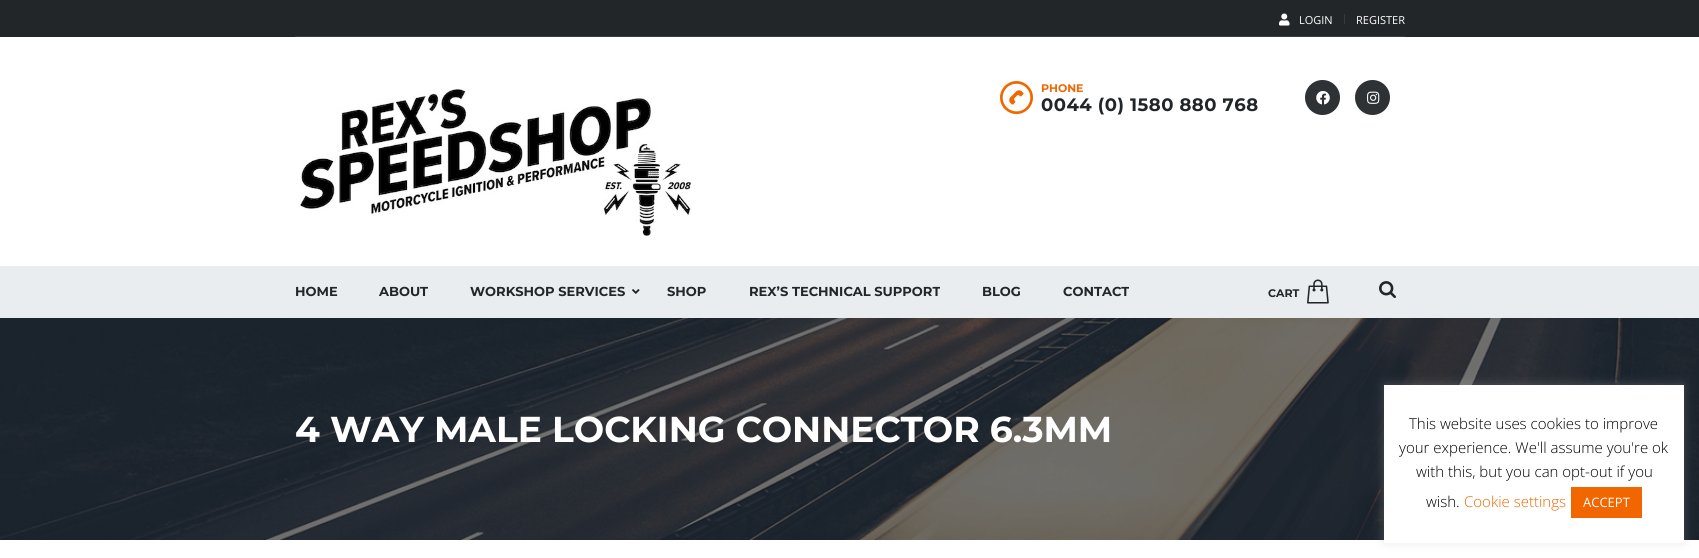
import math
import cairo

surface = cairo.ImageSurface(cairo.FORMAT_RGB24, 1699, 558)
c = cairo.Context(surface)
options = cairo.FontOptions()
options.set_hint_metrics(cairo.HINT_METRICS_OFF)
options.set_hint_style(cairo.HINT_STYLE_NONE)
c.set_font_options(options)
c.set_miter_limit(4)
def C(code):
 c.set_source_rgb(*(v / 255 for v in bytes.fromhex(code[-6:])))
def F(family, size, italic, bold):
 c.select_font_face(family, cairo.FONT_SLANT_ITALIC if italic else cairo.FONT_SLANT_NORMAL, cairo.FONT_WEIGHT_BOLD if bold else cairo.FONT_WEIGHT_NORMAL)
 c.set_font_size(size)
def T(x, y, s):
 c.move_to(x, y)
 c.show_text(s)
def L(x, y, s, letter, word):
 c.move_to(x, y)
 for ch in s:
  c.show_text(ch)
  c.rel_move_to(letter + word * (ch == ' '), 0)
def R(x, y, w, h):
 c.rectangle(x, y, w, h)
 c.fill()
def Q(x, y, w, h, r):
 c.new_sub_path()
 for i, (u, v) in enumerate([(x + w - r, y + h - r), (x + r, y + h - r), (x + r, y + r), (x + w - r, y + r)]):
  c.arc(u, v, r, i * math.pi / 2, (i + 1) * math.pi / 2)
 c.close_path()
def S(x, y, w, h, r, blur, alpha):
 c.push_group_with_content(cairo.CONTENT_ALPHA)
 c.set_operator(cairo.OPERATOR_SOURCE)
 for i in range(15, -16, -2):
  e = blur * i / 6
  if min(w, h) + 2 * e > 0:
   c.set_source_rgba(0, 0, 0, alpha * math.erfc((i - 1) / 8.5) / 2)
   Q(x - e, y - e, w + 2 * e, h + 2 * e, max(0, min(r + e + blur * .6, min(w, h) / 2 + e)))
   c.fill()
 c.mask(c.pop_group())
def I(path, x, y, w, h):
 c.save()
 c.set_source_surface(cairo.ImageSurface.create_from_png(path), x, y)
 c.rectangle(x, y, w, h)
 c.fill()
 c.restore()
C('ffffff')
c.paint()
C('232628')
R(0,0,1699,37)
C('393c3e')
R(295,36,1110,1)
I('1.png',1279,13,11,13)
F('Open Sans',11,0,0)
C('ffffff')
T(1299,24,'LOGIN')
C('373b3e')
R(1344,14,1,10)
C('ffffff')
T(1356,24,'REGISTER')
I('2.png',300,89,392,148)
I('3.png',1000,81,33,34)
F('Montserrat',11,0,1)
C('f26600')
T(1041,92,'PHONE')
F('Montserrat',18,0,1)
C('232628')
L(1041,111,'0044 (0) 1580 880 768',.5,0)
C('2f3234')
c.new_path()
c.arc(1322.5,97.5,17.5,0,2 * math.pi)
c.fill()
I('4.png',1316,91,14,14)
c.arc(1372.5,97.5,17.5,0,2 * math.pi)
c.fill()
I('5.png',1367,91,13,13)
C('eaedf0')
R(0,266,1699,52)
F('Montserrat',13,0,1)
C('232628')
T(295,296,'HOME')
T(379,296,'ABOUT')
T(470,296,'WORKSHOP SERVICES')
I('6.png',632,289,8,5)
T(667,296,'SHOP')
T(749,296,'REX’S TECHNICAL SUPPORT')
T(982,296,'BLOG')
T(1063,296,'CONTACT')
F('Montserrat',11,0,1)
T(1268,297,'CART')
I('7.png',1307,279,22,25)
I('8.png',1379,281,17,17)
I('9.png',0,318,1699,222)
F('Montserrat',36,0,1)
C('ffffff')
T(295,442,'4 WAY MALE LOCKING CONNECTOR 6.3MM')
C('acabab')
S(1384,384,300,158,0,5,.3)
C('ffffff')
R(1384,385,300,158)
F('Open Sans Light',15,0,0)
C('000000')
T(1409,429,'This website uses cookies to improve')
T(1399,453,'your experience. We\'ll assume you\'re ok')
T(1416,477,'with this, but you can opt-out if you')
T(1426,507,'wish.')
C('f26600')
T(1464,507,'Cookie settings')
R(1571,487,71,31)
F('Open Sans',13,0,0)
C('ffffff')
T(1583,507,'ACCEPT')
surface.write_to_png('o.png')
